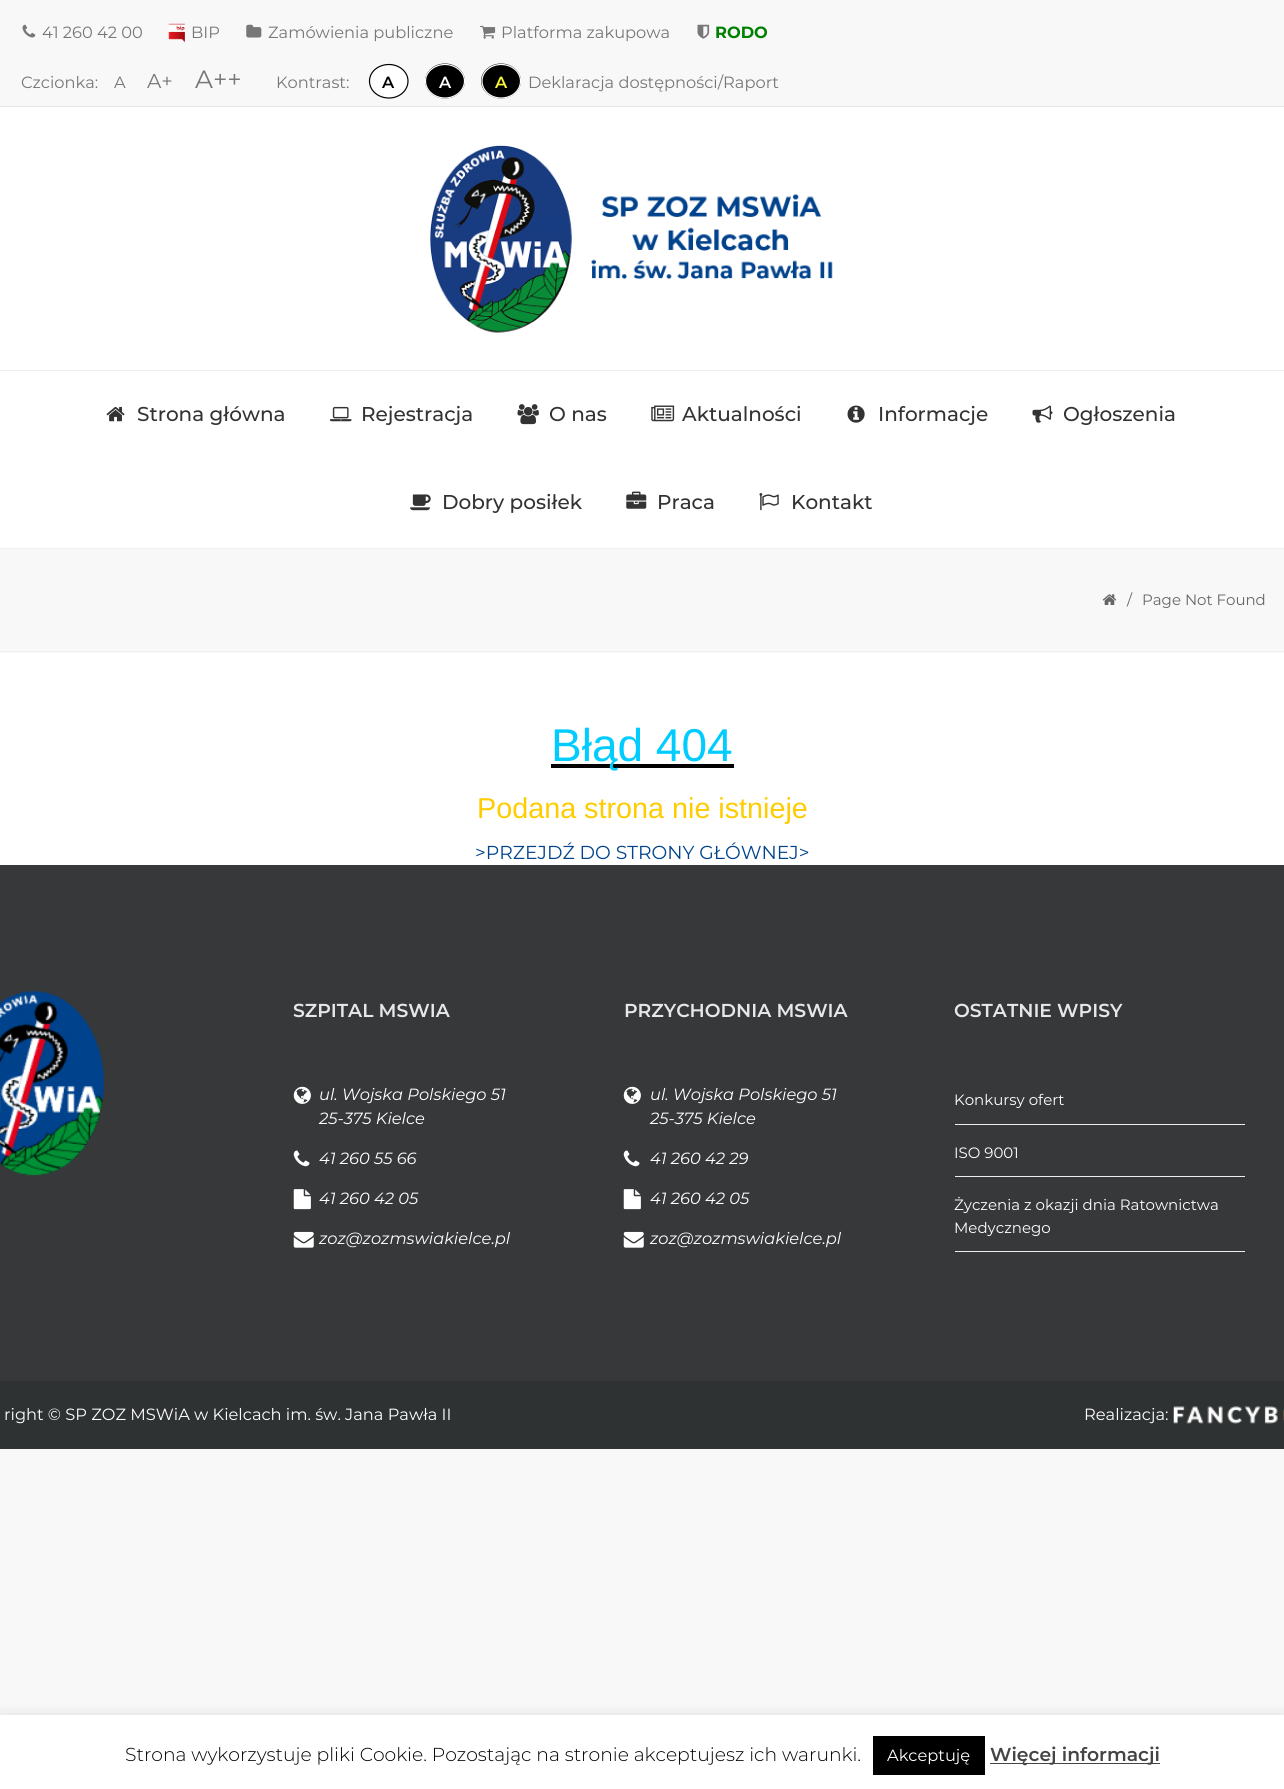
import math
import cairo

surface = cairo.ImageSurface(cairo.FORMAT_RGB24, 1284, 1789)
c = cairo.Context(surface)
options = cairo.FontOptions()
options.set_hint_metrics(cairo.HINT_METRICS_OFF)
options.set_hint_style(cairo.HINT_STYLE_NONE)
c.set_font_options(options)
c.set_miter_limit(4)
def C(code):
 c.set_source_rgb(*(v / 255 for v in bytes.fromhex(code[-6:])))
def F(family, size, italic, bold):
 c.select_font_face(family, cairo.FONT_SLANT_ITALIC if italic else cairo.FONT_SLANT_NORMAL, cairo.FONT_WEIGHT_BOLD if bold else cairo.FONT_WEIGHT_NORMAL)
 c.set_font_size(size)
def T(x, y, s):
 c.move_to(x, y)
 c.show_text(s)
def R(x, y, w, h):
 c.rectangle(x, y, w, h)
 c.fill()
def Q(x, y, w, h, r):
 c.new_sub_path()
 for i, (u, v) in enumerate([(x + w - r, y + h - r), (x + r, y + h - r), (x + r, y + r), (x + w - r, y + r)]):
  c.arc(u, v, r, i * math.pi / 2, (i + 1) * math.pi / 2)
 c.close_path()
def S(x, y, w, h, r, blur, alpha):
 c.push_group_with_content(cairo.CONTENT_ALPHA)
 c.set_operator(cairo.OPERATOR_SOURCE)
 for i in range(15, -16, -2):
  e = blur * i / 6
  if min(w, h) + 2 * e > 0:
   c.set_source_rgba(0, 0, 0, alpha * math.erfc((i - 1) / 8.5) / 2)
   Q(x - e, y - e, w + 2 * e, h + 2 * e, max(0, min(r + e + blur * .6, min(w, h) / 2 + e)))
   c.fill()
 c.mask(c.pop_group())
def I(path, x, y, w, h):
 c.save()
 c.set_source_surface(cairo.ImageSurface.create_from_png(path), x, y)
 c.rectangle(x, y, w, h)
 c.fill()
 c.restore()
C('f8f8f8')
c.paint()
C('ffffff')
R(0,107,1284,758)
C('e7e7e7')
R(0,106,1284,1)
I('1.png',22,24,14,14)
F('Montserrat',16.25,0,0)
C('777777')
T(42,38,'41 260 42 00')
I('2.png',168,23,17,20)
T(191,38,'BIP')
I('3.png',246,24,16,14)
T(268,38,'Zamówienia publiczne')
I('4.png',480,25,16,14)
T(501,38,'Platforma zakupowa')
I('5.png',697,24,13,15)
F('Montserrat',16.25,0,1)
C('008000')
T(715,38,'RODO')
F('Montserrat',16.25,0,0)
C('777777')
T(21,88,'Czcionka:')
T(114,88,'A')
F('Montserrat',20,0,0)
T(147,88,'A+')
F('Montserrat',25,0,0)
T(195,88,'A++')
F('Montserrat',16.25,0,0)
T(276,88,'Kontrast:')
C('ffffff')
c.new_path()
c.move_to(389,63.5)
c.curve_to(400,63.5,409,71.5,409,81)
c.curve_to(409,90.5,400,98.5,389,98.5)
c.curve_to(378,98.5,369,90.5,369,81)
c.curve_to(369,71.5,378,63.5,389,63.5)
c.close_path()
c.fill()
c.new_path()
c.move_to(389,64.5)
c.curve_to(399.5,64.5,408,72,408,81)
c.curve_to(408,90.5,399.5,98,389,98)
c.curve_to(378,98,369.5,90.5,369.5,81)
c.curve_to(369.5,72,378,64.5,389,64.5)
c.close_path()
C('000000')
c.set_line_width(1.2)
c.stroke()
F('Montserrat SemiBold',16.25,0,0)
T(382,88,'A')
c.new_path()
c.move_to(445,63.5)
c.curve_to(456,63.5,465,71.5,465,81)
c.curve_to(465,90.5,456,98.5,445,98.5)
c.curve_to(434,98.5,425,90.5,425,81)
c.curve_to(425,71.5,434,63.5,445,63.5)
c.close_path()
c.fill()
c.new_path()
c.move_to(445,64.5)
c.curve_to(455.5,64.5,464.5,72,464.5,81)
c.curve_to(464.5,90.5,455.5,98,445,98)
c.curve_to(434.5,98,425.5,90.5,425.5,81)
c.curve_to(425.5,72,434.5,64.5,445,64.5)
c.close_path()
C('ffffff')
c.stroke()
T(439,88,'A')
C('000000')
c.new_path()
c.move_to(501,63.5)
c.curve_to(512,63.5,521,71.5,521,81)
c.curve_to(521,90.5,512,98.5,501,98.5)
c.curve_to(490,98.5,481,90.5,481,81)
c.curve_to(481,71.5,490,63.5,501,63.5)
c.close_path()
c.fill()
c.new_path()
c.move_to(501,64.5)
c.curve_to(512,64.5,520.5,72,520.5,81)
c.curve_to(520.5,90.5,512,98,501,98)
c.curve_to(490.5,98,482,90.5,482,81)
c.curve_to(482,72,490.5,64.5,501,64.5)
c.close_path()
C('ffffff')
c.stroke()
C('f5f53c')
T(495,88,'A')
F('Montserrat',16.25,0,0)
C('777777')
T(528,88,'Deklaracja dostępności/Raport')
I('6.png',430,145,403,188)
C('f0f0f0')
R(0,370,1284,1)
R(0,548,1284,1)
I('7.png',106,406,19,16)
F('Montserrat Medium',20,0,0)
C('333333')
T(137,421,'Strona główna')
I('8.png',330,406,22,16)
T(361,421,'Rejestracja')
I('9.png',517,404,22,21)
T(549,421,'O nas')
I('10.png',651,405,24,17)
T(682,421,'Aktualności')
I('11.png',847,405,18,18)
T(878,421,'Informacje')
I('12.png',1032,405,21,18)
T(1063,421,'Ogłoszenia')
I('13.png',410,494,21,17)
T(442,509,'Dobry posiłek')
I('14.png',626,491,21,18)
T(657,509,'Praca')
I('15.png',759,493,20,18)
T(791,509,'Kontakt')
C('f8f8f8')
R(0,549,1284,104)
C('f0f0f0')
R(0,651,1284,1)
I('16.png',1102,594,15,11)
F('Montserrat',15,0,0)
C('676767')
T(1127,605,'/')
T(1142,605,'Page Not Found')
C('000000')
R(551,764,183,4)
F('Liberation Sans',46,0,0)
C('00ccff')
T(551,761,'Błąd 404')
F('Liberation Sans',28.75,0,0)
C('ffcc00')
T(477,818,'Podana strona nie istnieje')
F('Montserrat',18.75,0,0)
C('00428c')
T(475,859,'>PRZEJDŹ DO STRONY GŁÓWNEJ>')
C('363839')
R(0,865,1284,516)
I('17.png',0,991,104,185)
F('Montserrat SemiBold',18.75,0,0)
C('e6e7e8')
T(293,1017,'SZPITAL MSWIA')
I('18.png',293,1086,18,18)
F('Montserrat',16.25,1,0)
C('ffffff')
T(319,1100,'ul. Wojska Polskiego 51')
T(319,1124,'25-375 Kielce')
I('19.png',293,1150,17,17)
T(319,1164,'41 260 55 66')
I('20.png',293,1189,18,21)
T(319,1204,'41 260 42 05')
I('21.png',293,1231,21,17)
T(319,1244,'zoz@zozmswiakielce.pl')
F('Montserrat SemiBold',18.75,0,0)
C('e6e7e8')
T(624,1017,'PRZYCHODNIA MSWIA')
I('18.png',623,1086,18,18)
F('Montserrat',16.25,1,0)
C('ffffff')
T(650,1100,'ul. Wojska Polskiego 51')
T(650,1124,'25-375 Kielce')
I('19.png',623,1150,17,17)
T(650,1164,'41 260 42 29')
I('20.png',623,1189,18,21)
T(650,1204,'41 260 42 05')
I('21.png',623,1231,21,17)
T(650,1244,'zoz@zozmswiakielce.pl')
F('Montserrat SemiBold',18.75,0,0)
C('e6e7e8')
T(954,1017,'OSTATNIE WPISY')
C('eeeeee')
R(955,1124,290,1)
F('Montserrat',15,0,0)
C('ffffff')
T(954,1105,'Konkursy ofert')
C('eeeeee')
R(955,1176,290,1)
C('ffffff')
T(954,1158,'ISO 9001')
C('eeeeee')
R(955,1251,290,1)
C('ffffff')
T(954,1210,'Życzenia z okazji dnia Ratownictwa')
T(954,1233,'Medycznego')
C('2f3232')
R(0,1381,1284,68)
F('Montserrat',16.25,0,0)
C('ffffff')
T(4,1420,'right © SP ZOZ MSWiA w Kielcach im. św. Jana Pawła II')
T(1084,1420,'Realizacja:')
I('22.png',1173,1406,111,18)
C('acabab')
S(0,1714,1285,75,0,6,.3)
C('ffffff')
R(0,1715,1284,74)
F('Montserrat Light',18.75,0,0)
C('000000')
T(125,1761,'Strona wykorzystuje pliki Cookie. Pozostając na stronie akceptujesz ich warunki.')
R(873,1736,112,39)
F('Montserrat',16.25,0,0)
C('ffffff')
T(887,1761,'Akceptuję')
C('444444')
R(990,1763,170,1)
F('Montserrat SemiBold',18.75,0,0)
T(990,1761,'Więcej informacji')
surface.write_to_png('o.png')
